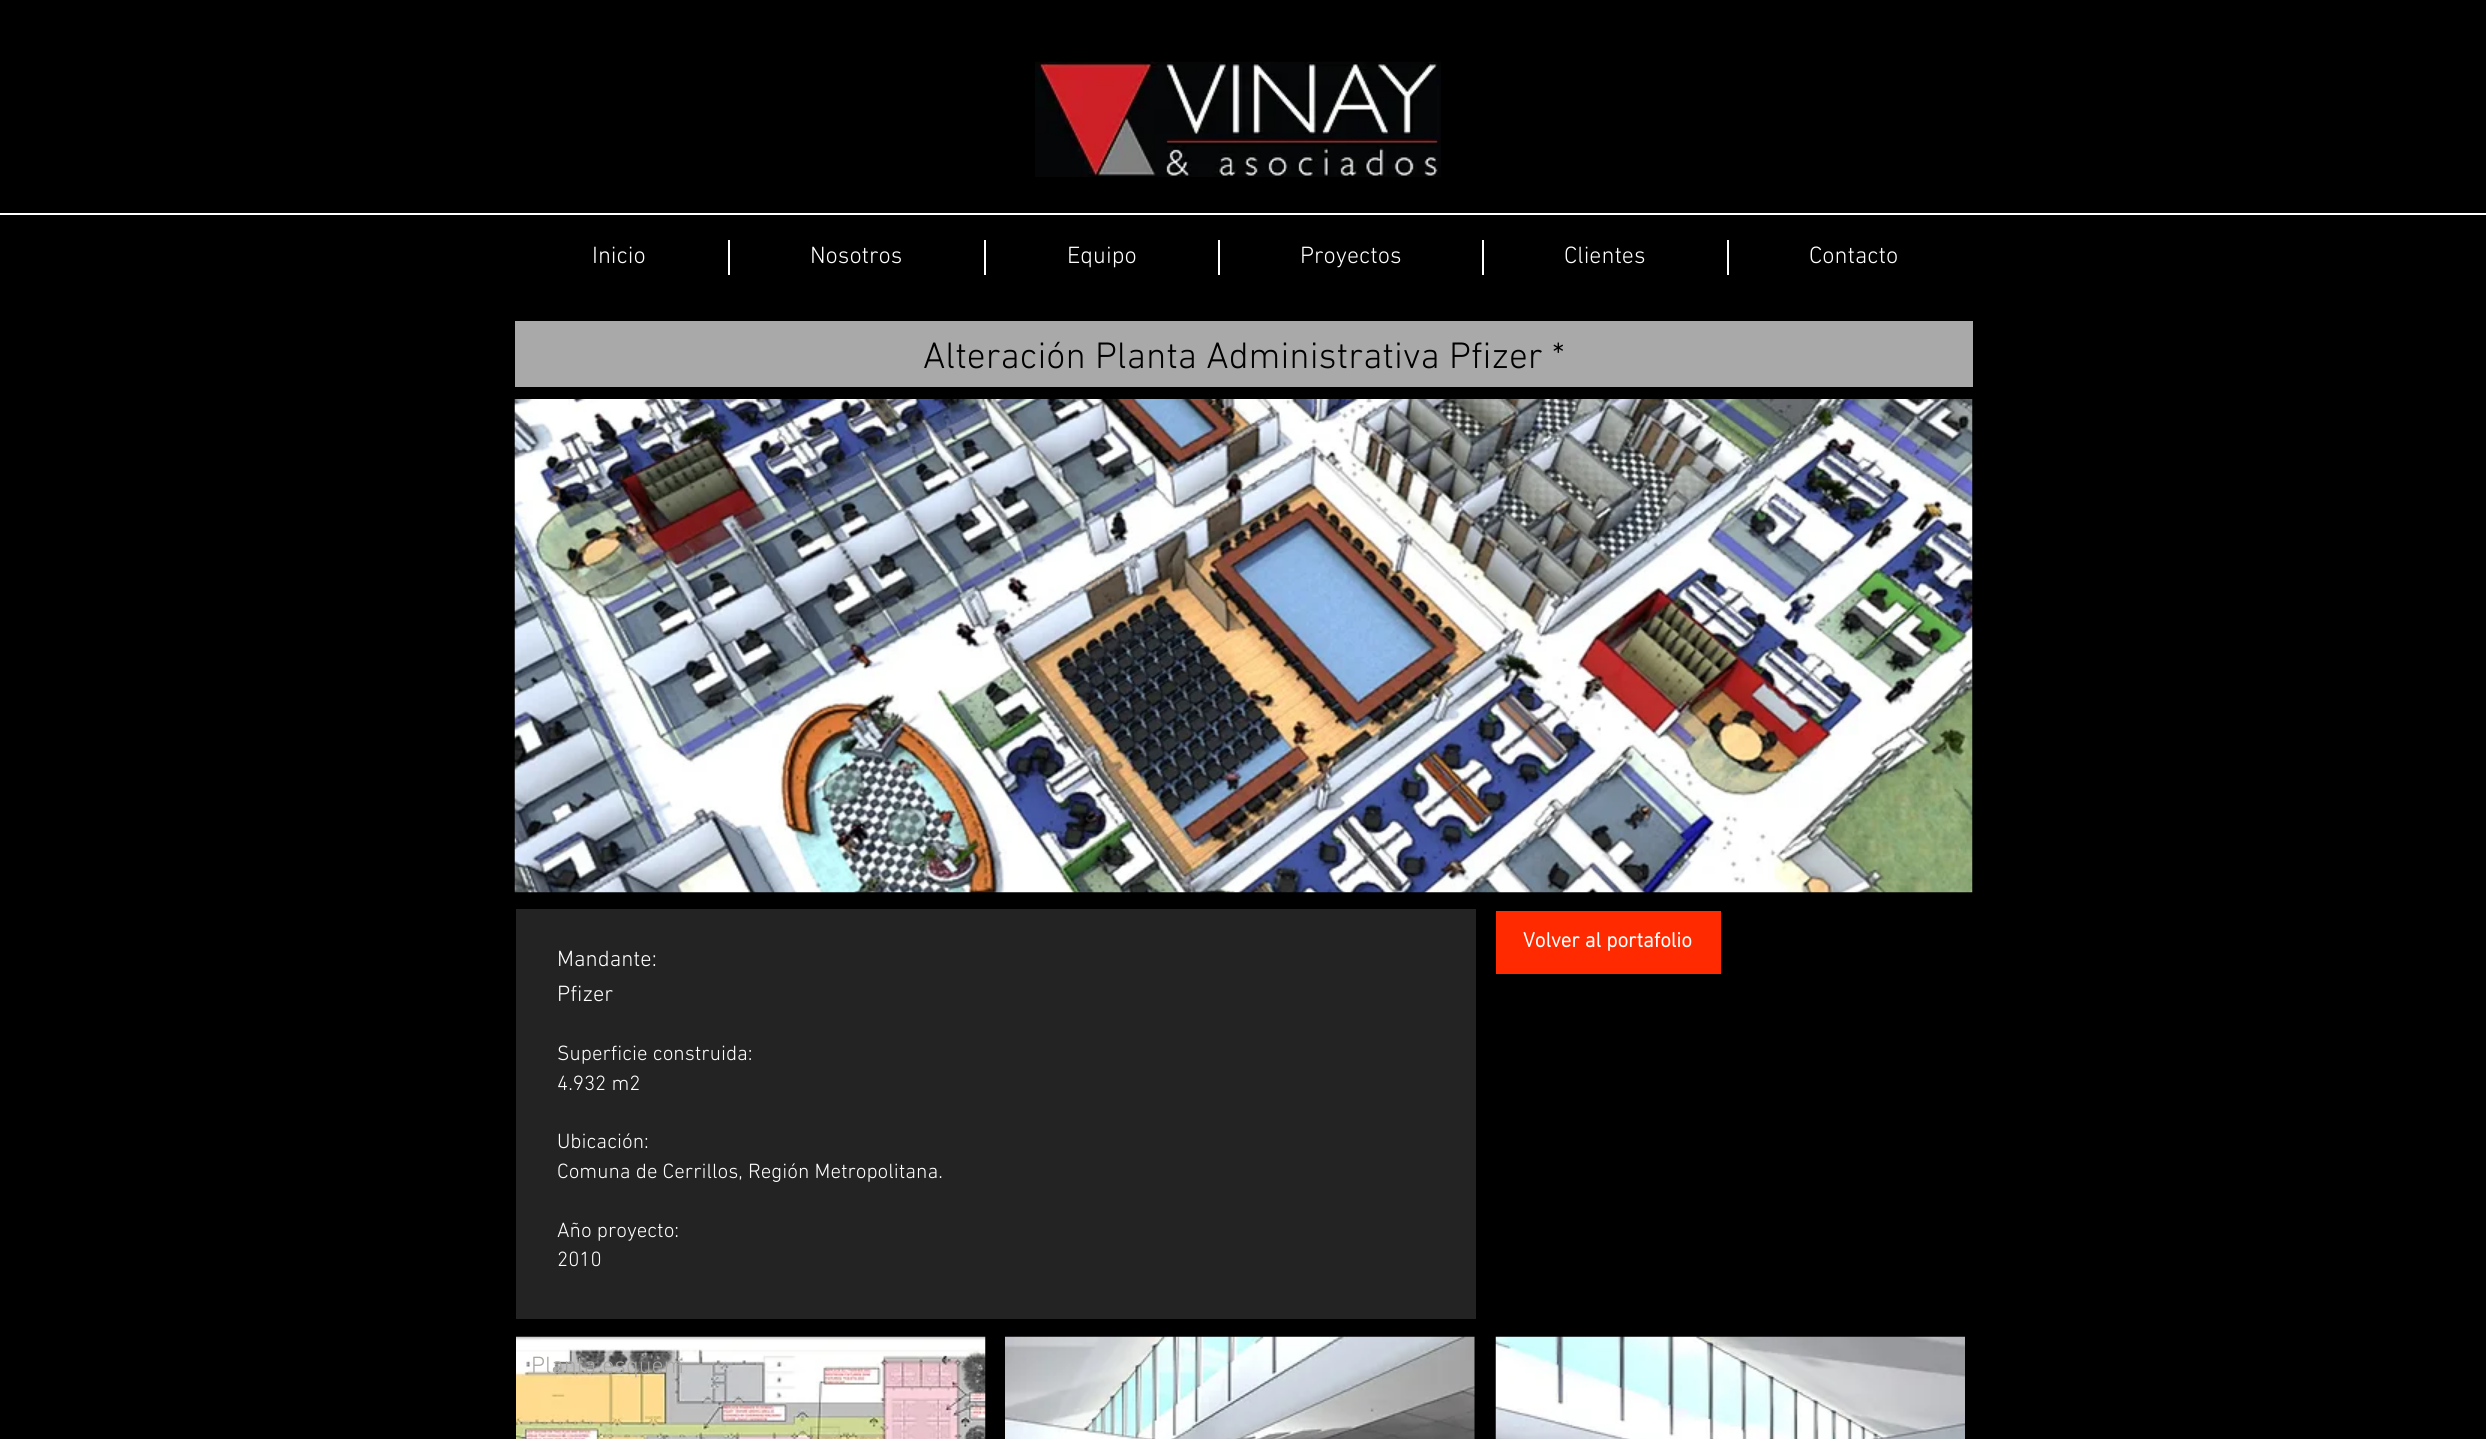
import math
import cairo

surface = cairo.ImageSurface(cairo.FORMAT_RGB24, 2486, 1439)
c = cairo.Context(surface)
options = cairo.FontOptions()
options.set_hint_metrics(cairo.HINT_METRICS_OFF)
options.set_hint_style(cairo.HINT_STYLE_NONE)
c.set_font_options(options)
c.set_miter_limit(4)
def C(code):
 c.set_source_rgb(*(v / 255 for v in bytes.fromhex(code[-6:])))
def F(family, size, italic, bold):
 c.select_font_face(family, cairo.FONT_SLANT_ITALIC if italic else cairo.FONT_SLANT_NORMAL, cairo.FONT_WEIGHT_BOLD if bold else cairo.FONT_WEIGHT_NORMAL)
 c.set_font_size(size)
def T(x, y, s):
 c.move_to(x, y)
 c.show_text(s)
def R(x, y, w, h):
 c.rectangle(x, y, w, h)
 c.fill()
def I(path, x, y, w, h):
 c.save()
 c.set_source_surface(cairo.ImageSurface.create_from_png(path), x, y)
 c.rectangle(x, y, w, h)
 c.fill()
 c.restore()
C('000000')
c.paint()
I('1.png',1035,61,406,116)
C('ffffff')
R(0,213,2486,2)
F('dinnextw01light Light',24,0,0)
T(592,263,'Inicio')
R(728,240,2,35)
T(810,263,'Nosotros')
R(984,240,2,35)
T(1067,263,'Equipo')
R(1218,240,2,35)
T(1300,263,'Proyectos')
R(1482,240,2,35)
T(1564,263,'Clientes')
R(1727,240,2,35)
T(1809,263,'Contacto')
C('a9a9a9')
R(515,321,1458,66)
F('dinnextw01light Light',37.5,0,0)
C('000000')
T(923,368,'Alteración Planta Administrativa Pfizer *')
I('2.png',514,399,1459,494)
C('ff2a00')
R(1496,911,225,63)
F('dinnextw01light',21,0,1)
C('ffffff')
T(1523,947,'Volver al portafolio')
C('232323')
R(516,909,960,410)
F('dinnextw01light Light',22.5,0,0)
C('ffffff')
T(557,966,'Mandante:')
T(557,1001,'Pfizer')
F('dinnextw01light Light',21,0,0)
T(557,1060,'Superficie construida:')
T(557,1090,'4.932 m2')
T(557,1148,'Ubicación:')
T(557,1178,'Comuna de Cerrillos, Región Metropolitana.')
T(557,1237,'Año proyecto:')
T(557,1266,'2010')
I('3.png',516,1336,470,103)
F('dinnextw01light Light',24,0,0)
C('a7a6a2')
T(531,1373,'Planta esquem')
I('4.png',1005,1336,470,103)
I('5.png',1495,1336,470,103)
surface.write_to_png('o.png')
